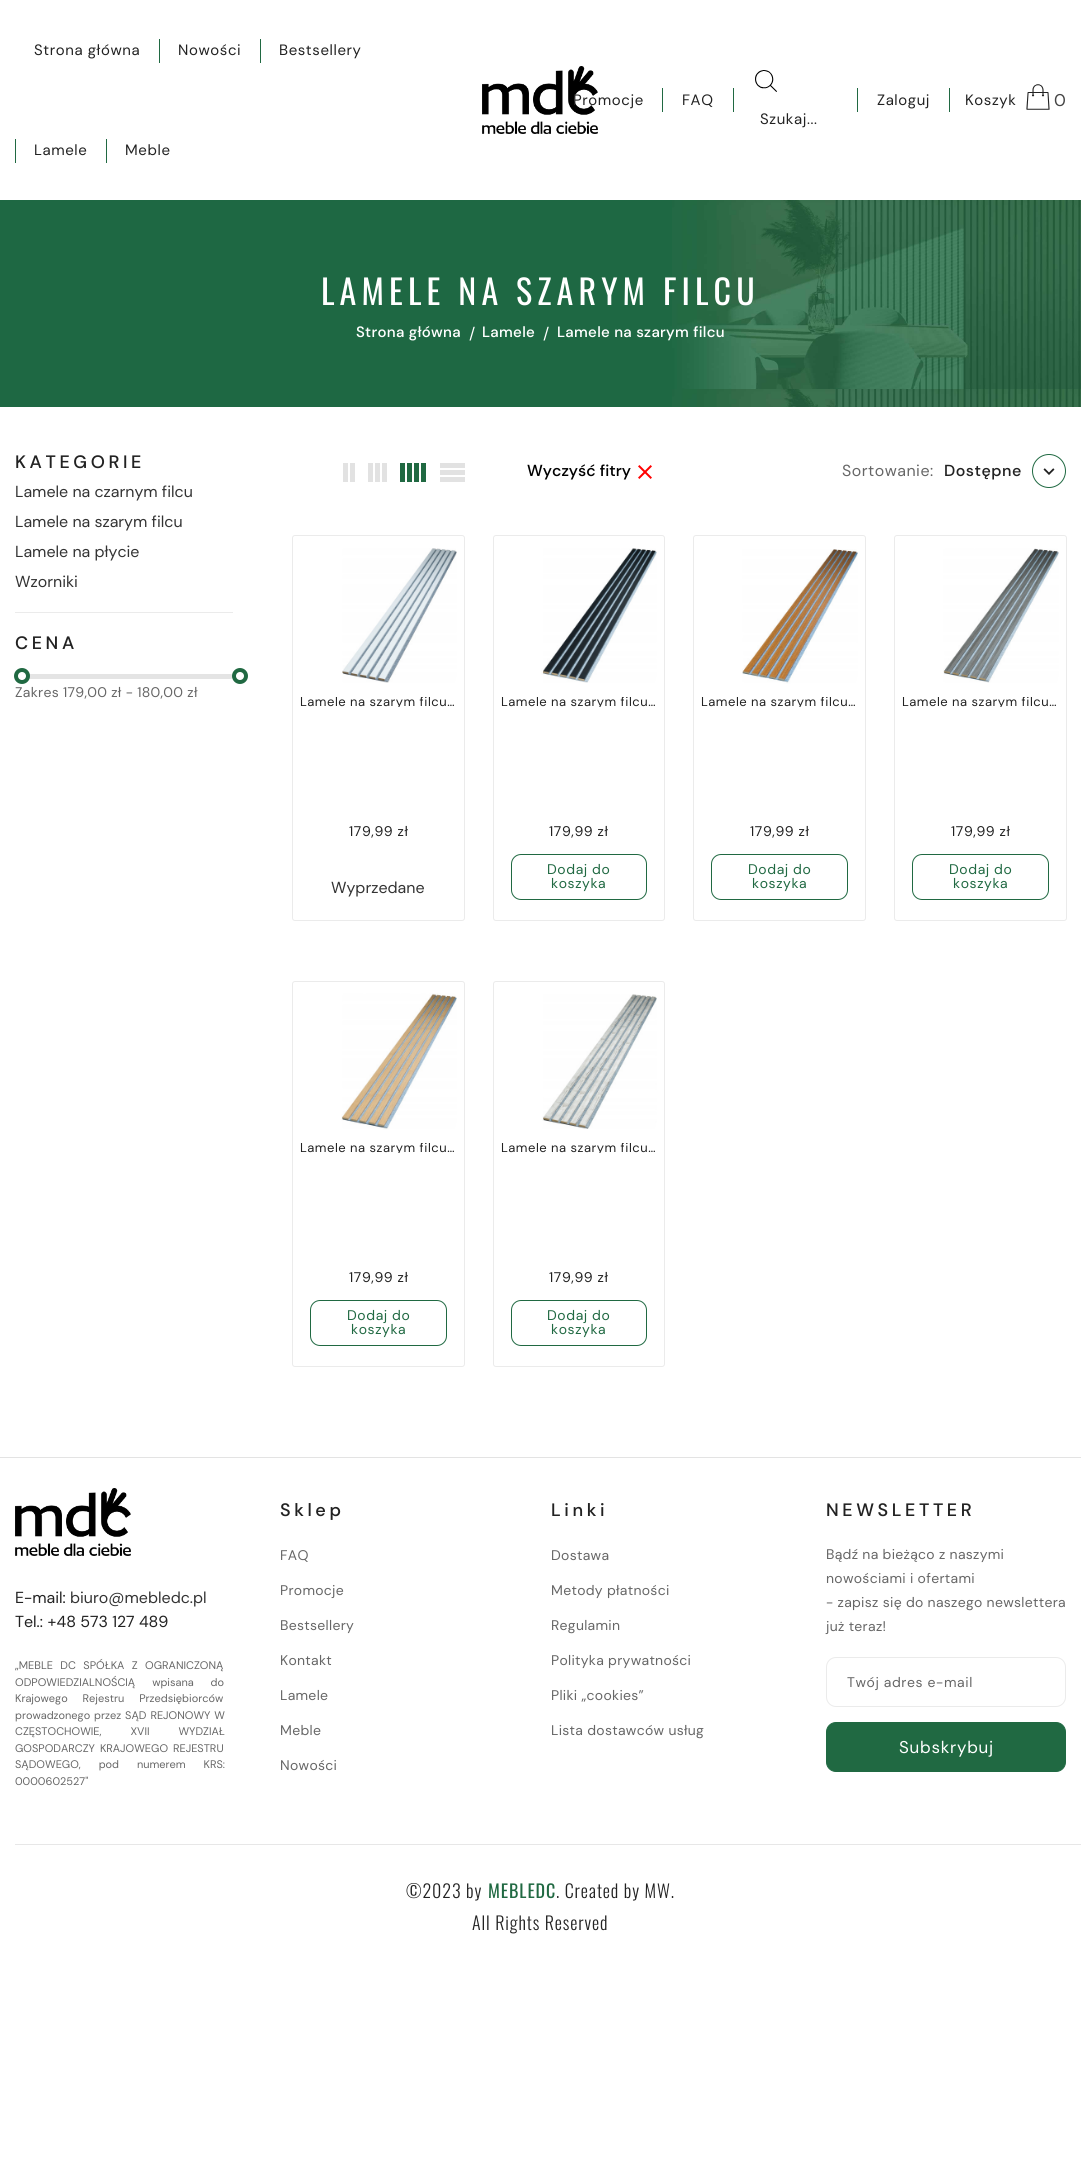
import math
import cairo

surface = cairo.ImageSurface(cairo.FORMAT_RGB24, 1081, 2163)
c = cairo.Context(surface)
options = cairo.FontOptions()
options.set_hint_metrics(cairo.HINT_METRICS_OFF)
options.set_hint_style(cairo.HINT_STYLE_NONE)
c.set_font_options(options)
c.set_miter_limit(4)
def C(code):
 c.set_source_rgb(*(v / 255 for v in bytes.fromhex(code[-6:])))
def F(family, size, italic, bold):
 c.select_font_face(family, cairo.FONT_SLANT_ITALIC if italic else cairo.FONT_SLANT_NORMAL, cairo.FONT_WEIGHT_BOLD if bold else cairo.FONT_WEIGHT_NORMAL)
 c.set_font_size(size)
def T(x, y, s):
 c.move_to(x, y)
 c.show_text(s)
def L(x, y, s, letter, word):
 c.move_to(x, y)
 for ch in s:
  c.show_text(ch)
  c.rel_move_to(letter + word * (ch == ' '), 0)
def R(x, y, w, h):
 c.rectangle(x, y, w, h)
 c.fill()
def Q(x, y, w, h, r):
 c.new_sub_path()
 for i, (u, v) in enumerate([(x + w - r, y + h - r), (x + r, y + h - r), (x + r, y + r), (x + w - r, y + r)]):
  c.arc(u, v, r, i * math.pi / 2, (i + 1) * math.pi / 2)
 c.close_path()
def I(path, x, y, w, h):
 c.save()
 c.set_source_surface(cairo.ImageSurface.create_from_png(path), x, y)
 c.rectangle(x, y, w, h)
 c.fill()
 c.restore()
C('ffffff')
c.paint()
F('DM Sans',15,0,0)
C('222222')
L(34,55,'Strona główna',.6,0)
C('206942')
R(159,39,1,24)
C('222222')
L(178,55,'Nowości',.6,0)
C('206942')
R(260,39,1,24)
C('222222')
L(279,55,'Bestsellery',.6,0)
C('206942')
R(15,139,1,24)
C('222222')
L(34,155,'Lamele',.6,0)
C('206942')
R(106,139,1,24)
C('222222')
L(125,155,'Meble',.6,0)
I('1.png',482,66,116,68)
L(573,105,'Promocje',.6,0)
C('206942')
R(662,88,1,24)
C('222222')
L(682,105,'FAQ',.6,0)
C('206942')
R(733,88,1,24)
R(857,88,1,24)
C('222222')
L(877,105,'Zaloguj',.6,0)
C('206942')
R(949,88,1,24)
C('222222')
L(965,105,'Koszyk',.6,0)
I('2.png',1026,84,24,26)
F('DM Sans',17,0,0)
C('444444')
L(1054,106,'0',.75,0)
I('3.png',755,70,22,22)
F('DM Sans',15,0,0)
C('222222')
L(760,124,'Szukaj...',.6,0)
I('4.png',0,200,1081,207)
F('Oswald',34,0,0)
C('ffffff')
L(321,305,'LAMELE NA SZARYM FILCU',5.1,0)
F('DM Sans Medium',15,0,0)
L(356,337,'Strona główna',.3,0)
F('DM Sans',16,0,0)
T(469,339,'/')
F('DM Sans Medium',15,0,0)
L(482,337,'Lamele',.3,0)
F('DM Sans',16,0,0)
T(543,339,'/')
F('DM Sans Medium',15,0,0)
L(557,337,'Lamele na szarym filcu',.3,0)
C('ebebeb')
R(15,612,218,1)
F('DM Sans Medium',18,0,0)
C('222222')
L(15,468,'KATEGORIE',3.6,0)
F('DM Sans',16,0,0)
C('333333')
T(15,497,'Lamele na czarnym filcu')
T(15,527,'Lamele na szarym filcu')
T(15,557,'Lamele na płycie')
T(15,587,'Wzorniki')
F('DM Sans Medium',18,0,0)
C('222222')
L(15,649,'CENA',3.6,0)
C('e4e4e4')
Q(15,674,218,5,2.5)
c.fill()
C('ffffff')
c.arc(22,676,6,0,2 * math.pi)
c.fill_preserve()
C('206942')
c.set_line_width(4)
c.stroke()
C('ffffff')
c.arc(240,676,6,0,2 * math.pi)
c.fill_preserve()
C('206942')
c.stroke()
F('DM Sans',14,0,0)
C('666666')
L(15,697,'Zakres 179,00 zł - 180,00 zł',.3,0)
C('e2e2e2')
R(343,463,5,19)
R(350,463,5,19)
R(368,463,5,19)
R(375,463,5,19)
R(382,463,5,19)
C('206942')
R(400,463,5,19)
R(407,463,5,19)
R(414,463,5,19)
R(421,463,5,19)
C('e2e2e2')
R(440,463,25,5)
R(440,470,25,5)
R(440,477,25,5)
F('DM Sans Medium',16,0,0)
C('000000')
T(527,476,'Wyczyść fitry')
I('5.png',638,465,14,14)
F('DM Sans',16,0,0)
C('666666')
L(842,476,'Sortowanie:',.5,0)
F('DM Sans Medium',16,0,0)
C('222222')
L(944,476,'Dostępne',.5,0)
c.new_path()
c.arc(1049,471,16.5,0,2 * math.pi)
C('206942')
c.set_line_width(1)
c.stroke()
I('6.png',1043,468,12,7)
Q(292.5,535.5,172,385,2.5)
C('ebebeb')
c.stroke()
I('7.png',342,548,115,135)
c.save()
c.rectangle(300,697,157,10)
c.clip()
F('DM Sans',13,0,0)
C('222222')
L(300,706,'Lamele na szarym filcu…',.5,0)
c.restore()
F('DM Sans',14,0,0)
C('222222')
L(349,836,'179,99 zł',.6,0)
F('DM Sans',16,0,0)
C('333333')
T(331,893,'Wyprzedane')
Q(493.5,535.5,171,385,2.5)
C('ebebeb')
c.stroke()
I('8.png',541,548,116,135)
c.save()
c.rectangle(501,697,156,10)
c.clip()
F('DM Sans',13,0,0)
C('222222')
L(501,706,'Lamele na szarym filcu…',.5,0)
c.restore()
F('DM Sans',14,0,0)
C('222222')
L(549,836,'179,99 zł',.6,0)
Q(511.5,854.5,135,45,9.5)
C('206942')
c.stroke()
L(547,874,'Dodaj do',.6,0)
L(551,888,'koszyka',.6,0)
Q(693.5,535.5,172,385,2.5)
C('ebebeb')
c.stroke()
I('9.png',742,549,116,135)
c.save()
c.rectangle(701,697,157,10)
c.clip()
F('DM Sans',13,0,0)
C('222222')
L(701,706,'Lamele na szarym filcu…',.5,0)
c.restore()
C('222222')
L(750,836,'179,99 zł',.6,0)
Q(711.5,854.5,136,45,9.5)
C('206942')
c.stroke()
L(748,874,'Dodaj do',.6,0)
L(752,888,'koszyka',.6,0)
Q(894.5,535.5,172,385,2.5)
C('ebebeb')
c.stroke()
I('10.png',943,548,116,135)
c.save()
c.rectangle(902,697,157,10)
c.clip()
F('DM Sans',13,0,0)
C('222222')
L(902,706,'Lamele na szarym filcu…',.5,0)
c.restore()
C('222222')
L(951,836,'179,99 zł',.6,0)
Q(912.5,854.5,136,45,9.5)
C('206942')
c.stroke()
L(949,874,'Dodaj do',.6,0)
L(953,888,'koszyka',.6,0)
Q(292.5,981.5,172,385,2.5)
C('ebebeb')
c.stroke()
I('11.png',341,993,116,137)
c.save()
c.rectangle(300,1143,157,10)
c.clip()
F('DM Sans',13,0,0)
C('222222')
L(300,1152,'Lamele na szarym filcu…',.5,0)
c.restore()
C('222222')
L(349,1282,'179,99 zł',.6,0)
Q(310.5,1300.5,136,45,9.5)
C('206942')
c.stroke()
L(347,1320,'Dodaj do',.6,0)
L(351,1334,'koszyka',.6,0)
Q(493.5,981.5,171,385,2.5)
C('ebebeb')
c.stroke()
I('12.png',542,994,115,135)
c.save()
c.rectangle(501,1143,156,10)
c.clip()
F('DM Sans',13,0,0)
C('222222')
L(501,1152,'Lamele na szarym filcu…',.5,0)
c.restore()
C('222222')
L(549,1282,'179,99 zł',.6,0)
Q(511.5,1300.5,135,45,9.5)
C('206942')
c.stroke()
L(547,1320,'Dodaj do',.6,0)
L(551,1334,'koszyka',.6,0)
C('e3e3e3')
R(0,1457,1081,1)
I('13.png',15,1488,116,68)
F('DM Sans',16,0,0)
C('222222')
T(15,1603,'E-mail:')
C('333333')
T(70,1603,'biuro@mebledc.pl')
C('222222')
T(15,1627,'Tel.: +48 573 127 489')
F('DM Sans',11,0,0)
C('666666')
L(15,1669,'„MEBLE DC SPÓŁKA Z OGRANICZONĄ',0,4.5)
L(15,1686,'ODPOWIEDZIALNOŚCIĄ wpisana do',0,14)
L(15,1702,'Krajowego Rejestru Przedsiębiorców',0,12)
L(15,1719,'prowadzonego przez SĄD REJONOWY W',0,1)
L(15,1735,'CZĘSTOCHOWIE, XVII WYDZIAŁ',0,26)
L(15,1752,'GOSPODARCZY KRAJOWEGO REJESTRU',0,2)
L(15,1768,'SĄDOWEGO, pod numerem KRS:',0,15)
T(15,1785,'0000602527"')
F('DM Sans Medium',18,0,0)
C('222222')
L(280,1516,'Sklep',3.6,0)
F('DM Sans',14,0,0)
C('666666')
L(280,1560,'FAQ',.3,0)
L(280,1595,'Promocje',.3,0)
L(280,1630,'Bestsellery',.3,0)
L(280,1665,'Kontakt',.3,0)
L(280,1700,'Lamele',.3,0)
L(280,1735,'Meble',.3,0)
L(280,1770,'Nowości',.3,0)
F('DM Sans Medium',18,0,0)
C('222222')
L(551,1516,'Linki',3.6,0)
F('DM Sans',14,0,0)
C('666666')
L(551,1560,'Dostawa',.3,0)
L(551,1595,'Metody płatności',.3,0)
L(551,1630,'Regulamin',.3,0)
L(551,1665,'Polityka prywatności',.3,0)
L(551,1700,'Pliki „cookies”',.3,0)
L(551,1735,'Lista dostawców usług',.3,0)
F('DM Sans Medium',18,0,0)
C('222222')
L(826,1516,'NEWSLETTER',3.6,0)
F('DM Sans',14,0,0)
C('666666')
L(826,1559,'Bądź na bieżąco z naszymi',.3,0)
L(826,1583,'nowościami i ofertami',.3,0)
L(826,1607,'- zapisz się do naszego newslettera',.3,0)
L(826,1631,'już teraz!',.3,0)
Q(826.5,1657.5,239,49,9.5)
C('ebebeb')
c.stroke()
C('666666')
L(847,1687,'Twój adres e-mail',.6,0)
C('206942')
Q(826.5,1722.5,239,49,9.5)
c.fill_preserve()
c.stroke()
F('DM Sans',17,0,0)
C('ffffff')
L(899,1753,'Subskrybuj',.75,0)
C('e7e7e7')
R(15,1844,1066,1)
F('Oswald Light',18,0,0)
C('222222')
L(406,1898,'©2023 by',.9,0)
F('Oswald',18,0,0)
C('206942')
L(488,1898,'MEBLEDC',.9,0)
F('Oswald Light',18,0,0)
C('222222')
L(556,1898,'. Created by MW.',.9,0)
L(472,1930,'All Rights Reserved',.9,0)
surface.write_to_png('o.png')
